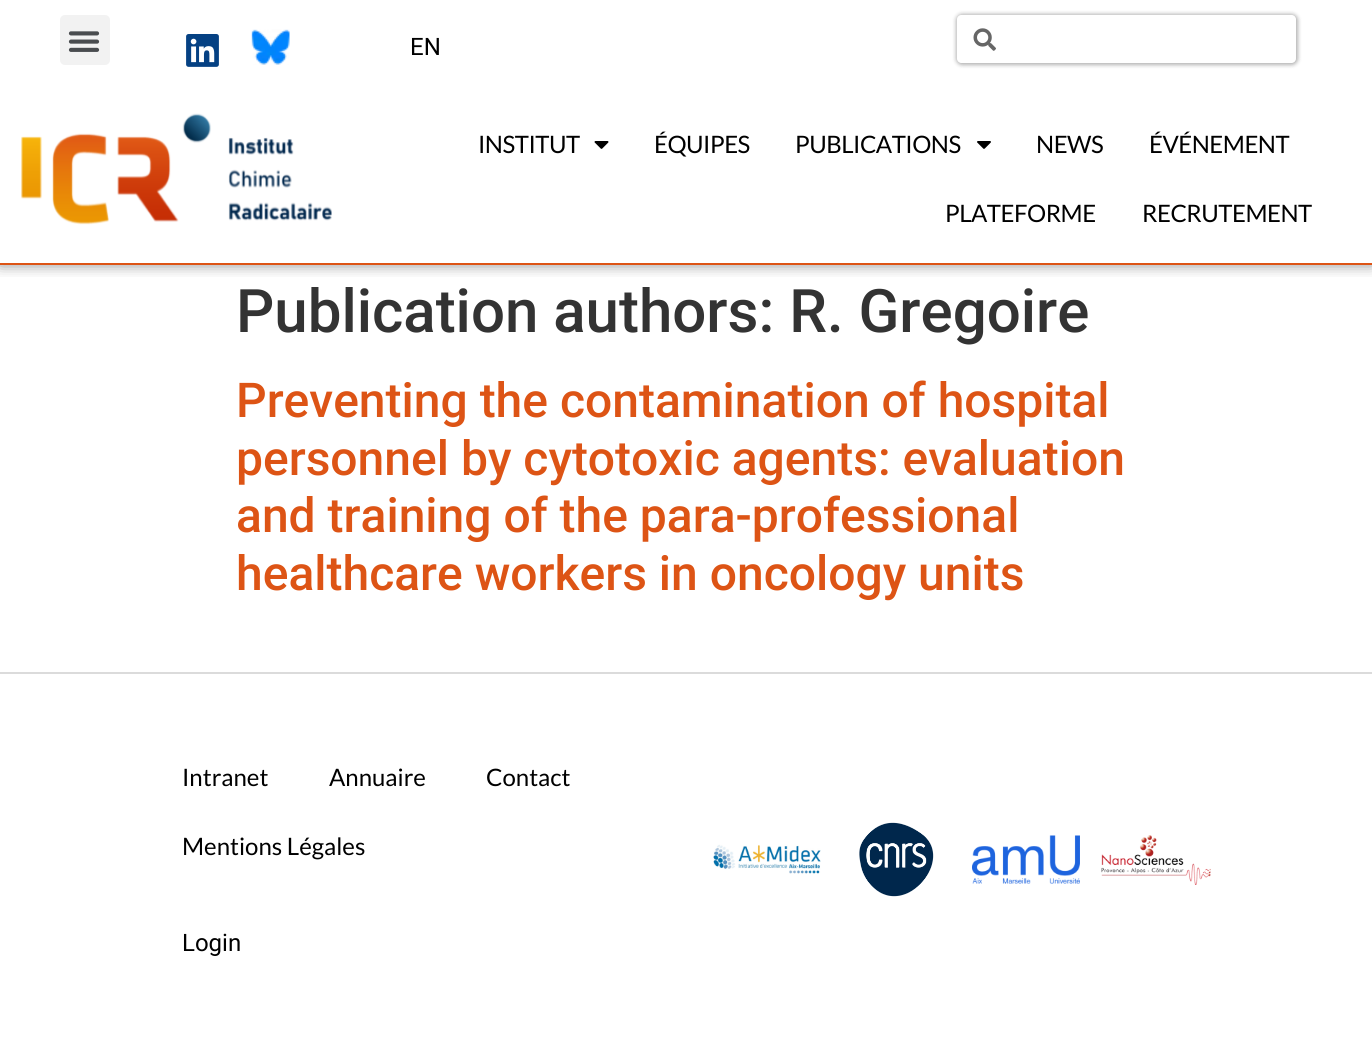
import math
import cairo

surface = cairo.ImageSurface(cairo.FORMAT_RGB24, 1372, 1059)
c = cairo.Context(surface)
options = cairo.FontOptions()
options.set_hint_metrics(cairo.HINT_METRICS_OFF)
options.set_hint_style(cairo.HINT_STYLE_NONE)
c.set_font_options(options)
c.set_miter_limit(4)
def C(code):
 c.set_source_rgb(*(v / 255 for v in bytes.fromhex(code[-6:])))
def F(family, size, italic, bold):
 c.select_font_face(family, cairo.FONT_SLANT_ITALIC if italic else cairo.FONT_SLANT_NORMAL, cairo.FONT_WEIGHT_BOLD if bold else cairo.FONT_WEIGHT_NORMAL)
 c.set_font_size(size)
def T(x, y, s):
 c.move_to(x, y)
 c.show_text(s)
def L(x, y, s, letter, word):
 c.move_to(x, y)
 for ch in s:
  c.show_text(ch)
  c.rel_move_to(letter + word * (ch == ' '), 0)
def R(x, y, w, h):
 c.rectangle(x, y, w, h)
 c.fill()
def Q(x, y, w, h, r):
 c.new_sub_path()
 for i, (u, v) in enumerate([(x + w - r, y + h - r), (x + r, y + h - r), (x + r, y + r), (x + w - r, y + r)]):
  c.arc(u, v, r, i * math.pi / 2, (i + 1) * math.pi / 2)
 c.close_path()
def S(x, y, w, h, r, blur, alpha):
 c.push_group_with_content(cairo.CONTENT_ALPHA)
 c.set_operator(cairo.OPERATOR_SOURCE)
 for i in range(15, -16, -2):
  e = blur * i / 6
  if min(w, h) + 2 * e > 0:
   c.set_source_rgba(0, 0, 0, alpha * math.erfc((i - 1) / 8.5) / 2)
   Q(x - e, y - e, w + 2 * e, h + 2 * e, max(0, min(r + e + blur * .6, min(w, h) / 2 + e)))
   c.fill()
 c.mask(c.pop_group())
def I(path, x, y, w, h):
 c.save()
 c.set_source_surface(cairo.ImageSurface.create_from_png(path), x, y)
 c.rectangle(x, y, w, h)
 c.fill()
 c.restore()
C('ffffff')
c.paint()
c.save()
c.rectangle(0,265,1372,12)
c.clip()
C('000000')
S(0,0,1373,264,0,7.5,.5)
c.restore()
C('dd5415')
R(0,263,1372,2)
C('f2f2f2')
Q(60,15,50,50,5)
c.fill()
I('1.png',68,31,32,21)
I('2.png',186,34,33,33)
I('3.png',251,29,39,36)
F('Roboto',24,0,0)
C('000000')
T(410,55,'EN')
c.save()
c.set_fill_rule(cairo.FILL_RULE_EVEN_ODD)
c.new_path()
c.move_to(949,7)
c.line_to(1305,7)
c.line_to(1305,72)
c.line_to(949,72)
c.close_path()
c.move_to(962,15)
c.line_to(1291,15)
c.curve_to(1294,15,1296,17,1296,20)
c.line_to(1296,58)
c.curve_to(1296,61,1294,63,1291,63)
c.line_to(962,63)
c.curve_to(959,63,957,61,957,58)
c.line_to(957,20)
c.curve_to(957,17,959,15,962,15)
c.close_path()
c.clip()
C('000000')
S(956,14,342,51,6,2,.3)
c.restore()
I('4.png',973,28,23,23)
I('5.png',21,113,311,112)
F('Lato',24,0,0)
L(478,153,'INSTITUT',-.5,0)
I('6.png',594,141,15,8)
L(654,153,'ÉQUIPES',-.5,0)
L(795,153,'PUBLICATIONS',-.5,0)
I('7.png',977,141,14,8)
L(1036,153,'NEWS',-.5,0)
L(1149,153,'ÉVÉNEMENT',-.5,0)
L(945,222,'PLATEFORME',-.5,0)
L(1142,222,'RECRUTEMENT',-.5,0)
F('Roboto Medium',60,0,0)
C('333333')
T(236,332,'Publication authors: R. Gregoire')
F('Roboto Medium',48,0,0)
C('dd5415')
T(236,417,'Preventing the contamination of hospital')
T(236,475,'personnel by cytotoxic agents: evaluation')
T(236,532,'and training of the para-professional')
T(236,590,'healthcare workers in oncology units')
C('dbdbdb')
R(0,672,1372,2)
F('Lato',24,0,0)
C('000000')
T(182,786,'Intranet')
T(329,786,'Annuaire')
T(486,786,'Contact')
T(182,855,'Mentions Légales')
F('Roboto',24,0,0)
T(182,951,'Login')
I('8.png',713,844,108,30)
I('9.png',859,822,75,75)
I('10.png',972,835,108,49)
I('11.png',1101,835,110,50)
surface.write_to_png('o.png')
